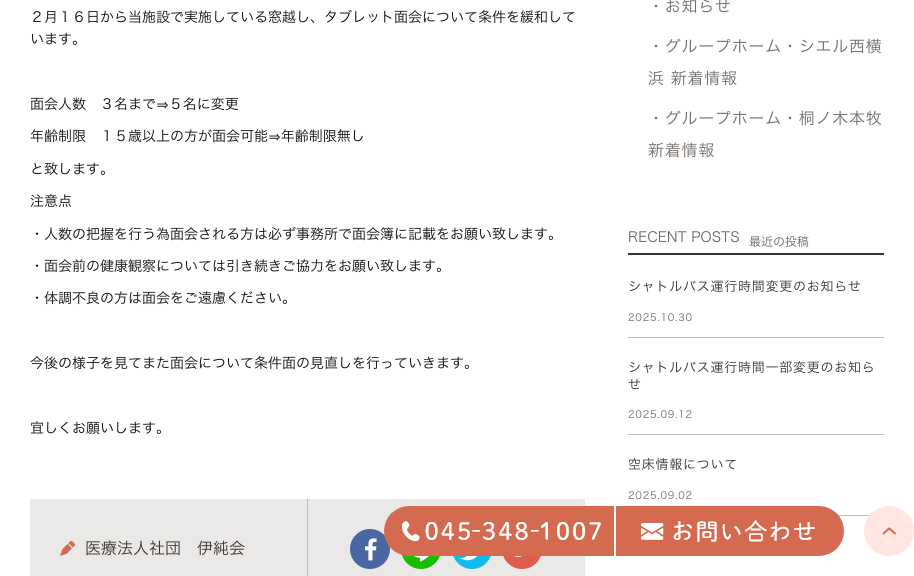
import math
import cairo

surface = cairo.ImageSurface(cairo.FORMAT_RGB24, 914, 576)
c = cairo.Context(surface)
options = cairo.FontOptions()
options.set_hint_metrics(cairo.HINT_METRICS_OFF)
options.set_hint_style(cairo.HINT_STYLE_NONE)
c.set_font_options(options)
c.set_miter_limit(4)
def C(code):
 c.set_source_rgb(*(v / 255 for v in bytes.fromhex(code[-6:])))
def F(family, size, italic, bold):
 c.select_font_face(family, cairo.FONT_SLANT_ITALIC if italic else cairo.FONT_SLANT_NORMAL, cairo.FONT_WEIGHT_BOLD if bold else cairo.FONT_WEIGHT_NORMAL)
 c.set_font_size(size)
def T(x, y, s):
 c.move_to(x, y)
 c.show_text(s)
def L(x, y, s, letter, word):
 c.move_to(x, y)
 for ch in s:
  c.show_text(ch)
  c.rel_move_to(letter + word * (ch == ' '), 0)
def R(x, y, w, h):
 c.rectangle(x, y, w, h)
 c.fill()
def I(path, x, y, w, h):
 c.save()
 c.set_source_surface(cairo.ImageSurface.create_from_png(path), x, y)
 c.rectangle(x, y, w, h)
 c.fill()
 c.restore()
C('ffffff')
c.paint()
F('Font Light',14,0,0)
C('0f0e0e')
T(30,22,'２月１６日から当施設で実施している窓越し、タブレット面会について条件を緩和して')
T(30,44,'います。')
T(30,109,'面会人数　３名まで⇒５名に変更')
T(30,141,'年齢制限　１５歳以上の方が面会可能⇒年齢制限無し')
T(30,174,'と致します。')
T(30,206,'注意点')
T(30,239,'・人数の把握を行う為面会される方は必ず事務所で面会簿に記載をお願い致します。')
T(30,271,'・面会前の健康観察については引き続きご協力をお願い致します。')
T(30,303,'・体調不良の方は面会をご遠慮ください。')
T(30,368,'今後の様子を見てまた面会について条件面の見直しを行っていきます。')
T(30,433,'宜しくお願いします。')
C('ebe9e7')
R(30,499,555,77)
C('bfbebd')
R(307,499,1,77)
I('1.png',60,541,15,15)
F('Font Light',16,0,0)
C('373431')
T(85,554,'医療法人社団　伊純会')
C('4967a3')
c.new_path()
c.arc(370,549,20,0,2 * math.pi)
c.fill()
I('2.png',365,538,12,23)
C('18bc01')
c.arc(421,549,20,0,2 * math.pi)
c.fill()
I('3.png',414,556,15,6)
C('11bbef')
c.arc(472,549,20,0,2 * math.pi)
c.fill()
I('4.png',460,556,18,5)
C('e05c4f')
c.arc(522,549,20,0,2 * math.pi)
c.fill()
I('5.png',514,556,8,1)
C('736e6a')
L(648,12,'・お知らせ',.75,0)
L(648,52,'・グループホーム・シエル西横',.75,0)
L(648,84,'浜 新着情報',.75,0)
L(648,124,'・グループホーム・桐ノ木本牧',.75,0)
L(648,156,'新着情報',.75,0)
C('373431')
R(628,253,256,2)
F('Font Light',14,0,0)
C('686868')
T(628,242,'RECENT POSTS')
F('Font Light',12,0,0)
T(749,246,'最近の投稿')
C('bfbebd')
R(628,337,256,1)
F('Font Light',13,0,0)
C('373431')
L(628,291,'シャトルバス運行時間変更のお知らせ',.75,0)
F('Font Light',10,0,0)
C('736e6a')
L(628,321,'2025.10.30',.75,0)
C('bfbebd')
R(628,434,256,1)
F('Font Light',13,0,0)
C('373431')
L(628,372,'シャトルバス運行時間一部変更のお知ら',.75,0)
L(628,389,'せ',.75,0)
F('Font Light',10,0,0)
C('736e6a')
L(628,418,'2025.09.12',.75,0)
C('bfbebd')
R(838,515,32,1)
F('Font Light',13,0,0)
C('373431')
L(628,469,'空床情報について',.75,0)
F('Font Light',10,0,0)
C('736e6a')
L(628,499,'2025.09.02',.75,0)
I('6.png',384,506,230,50)
I('7.png',616,506,228,50)
I('8.png',864,506,50,50)
surface.write_to_png('o.png')
